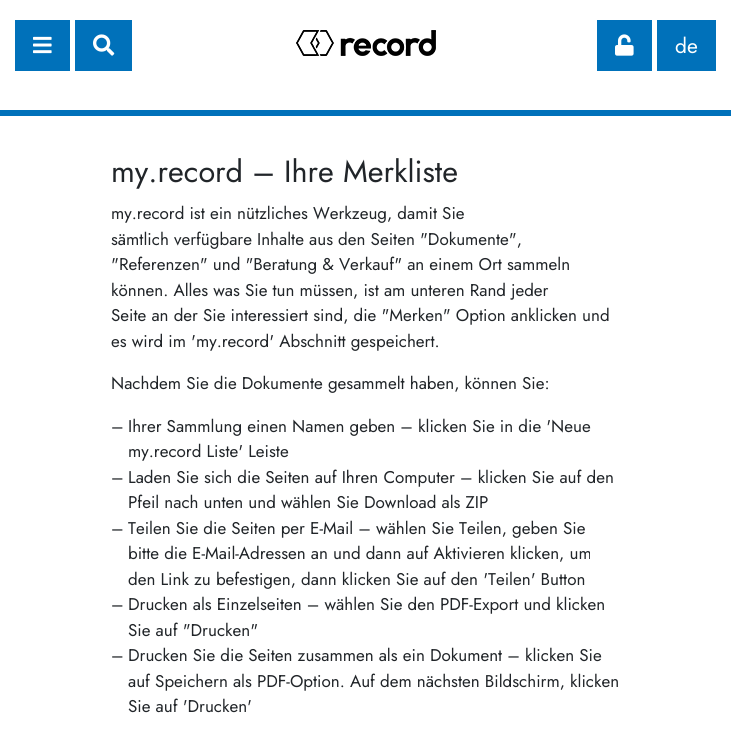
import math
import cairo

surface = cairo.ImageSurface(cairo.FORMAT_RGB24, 731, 733)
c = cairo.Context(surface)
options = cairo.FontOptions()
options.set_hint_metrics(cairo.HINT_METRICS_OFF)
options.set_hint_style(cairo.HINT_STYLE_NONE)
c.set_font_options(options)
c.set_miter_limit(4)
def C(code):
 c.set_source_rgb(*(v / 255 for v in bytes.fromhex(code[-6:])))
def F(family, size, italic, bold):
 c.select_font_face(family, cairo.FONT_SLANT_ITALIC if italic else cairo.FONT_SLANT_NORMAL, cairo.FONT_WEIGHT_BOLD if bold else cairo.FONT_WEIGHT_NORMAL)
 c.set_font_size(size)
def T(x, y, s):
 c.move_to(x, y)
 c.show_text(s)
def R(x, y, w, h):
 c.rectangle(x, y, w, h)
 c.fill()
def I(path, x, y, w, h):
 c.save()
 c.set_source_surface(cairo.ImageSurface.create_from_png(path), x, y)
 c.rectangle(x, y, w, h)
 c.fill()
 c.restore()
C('ffffff')
c.paint()
C('0071ba')
R(15,20,55,51)
I('1.png',33,36,19,18)
R(75,20,57,51)
I('2.png',93,34,22,22)
I('3.png',296,30,140,26)
R(597,20,55,51)
I('4.png',615,34,19,22)
R(657,20,59,51)
F('Jost',21,0,0)
C('ffffff')
T(675,53,'de')
C('0071ba')
R(0,110,731,6)
F('Jost',30.6,0,0)
C('212529')
T(111,182,'my.record – Ihre Merkliste')
F('Jost',17,0,0)
T(111,219,'my.record ist ein nützliches Werkzeug, damit Sie')
T(111,245,'sämtlich verfügbare Inhalte aus den Seiten "Dokumente",')
T(111,270,'"Referenzen" und "Beratung & Verkauf" an einem Ort sammeln')
T(111,296,'können. Alles was Sie tun müssen, ist am unteren Rand jeder')
T(111,321,'Seite an der Sie interessiert sind, die "Merken" Option anklicken und')
T(111,347,'es wird im \'my.record\' Abschnitt gespeichert.')
T(111,389,'Nachdem Sie die Dokumente gesammelt haben, können Sie:')
T(111,432,'–')
T(128,432,'Ihrer Sammlung einen Namen geben – klicken Sie in die \'Neue')
T(128,457,'my.record Liste\' Leiste')
T(111,483,'–')
T(128,483,'Laden Sie sich die Seiten auf Ihren Computer – klicken Sie auf den')
T(128,508,'Pfeil nach unten und wählen Sie Download als ZIP')
T(111,534,'–')
T(128,534,'Teilen Sie die Seiten per E-Mail – wählen Sie Teilen, geben Sie')
T(128,559,'bitte die E-Mail-Adressen an und dann auf Aktivieren klicken, um')
T(128,585,'den Link zu befestigen, dann klicken Sie auf den \'Teilen\' Button')
T(111,610,'–')
T(128,610,'Drucken als Einzelseiten – wählen Sie den PDF-Export und klicken')
T(128,636,'Sie auf "Drucken"')
T(111,661,'–')
T(128,661,'Drucken Sie die Seiten zusammen als ein Dokument – klicken Sie')
T(128,687,'auf Speichern als PDF-Option. Auf dem nächsten Bildschirm, klicken')
T(128,712,'Sie auf \'Drucken\'')
surface.write_to_png('o.png')
